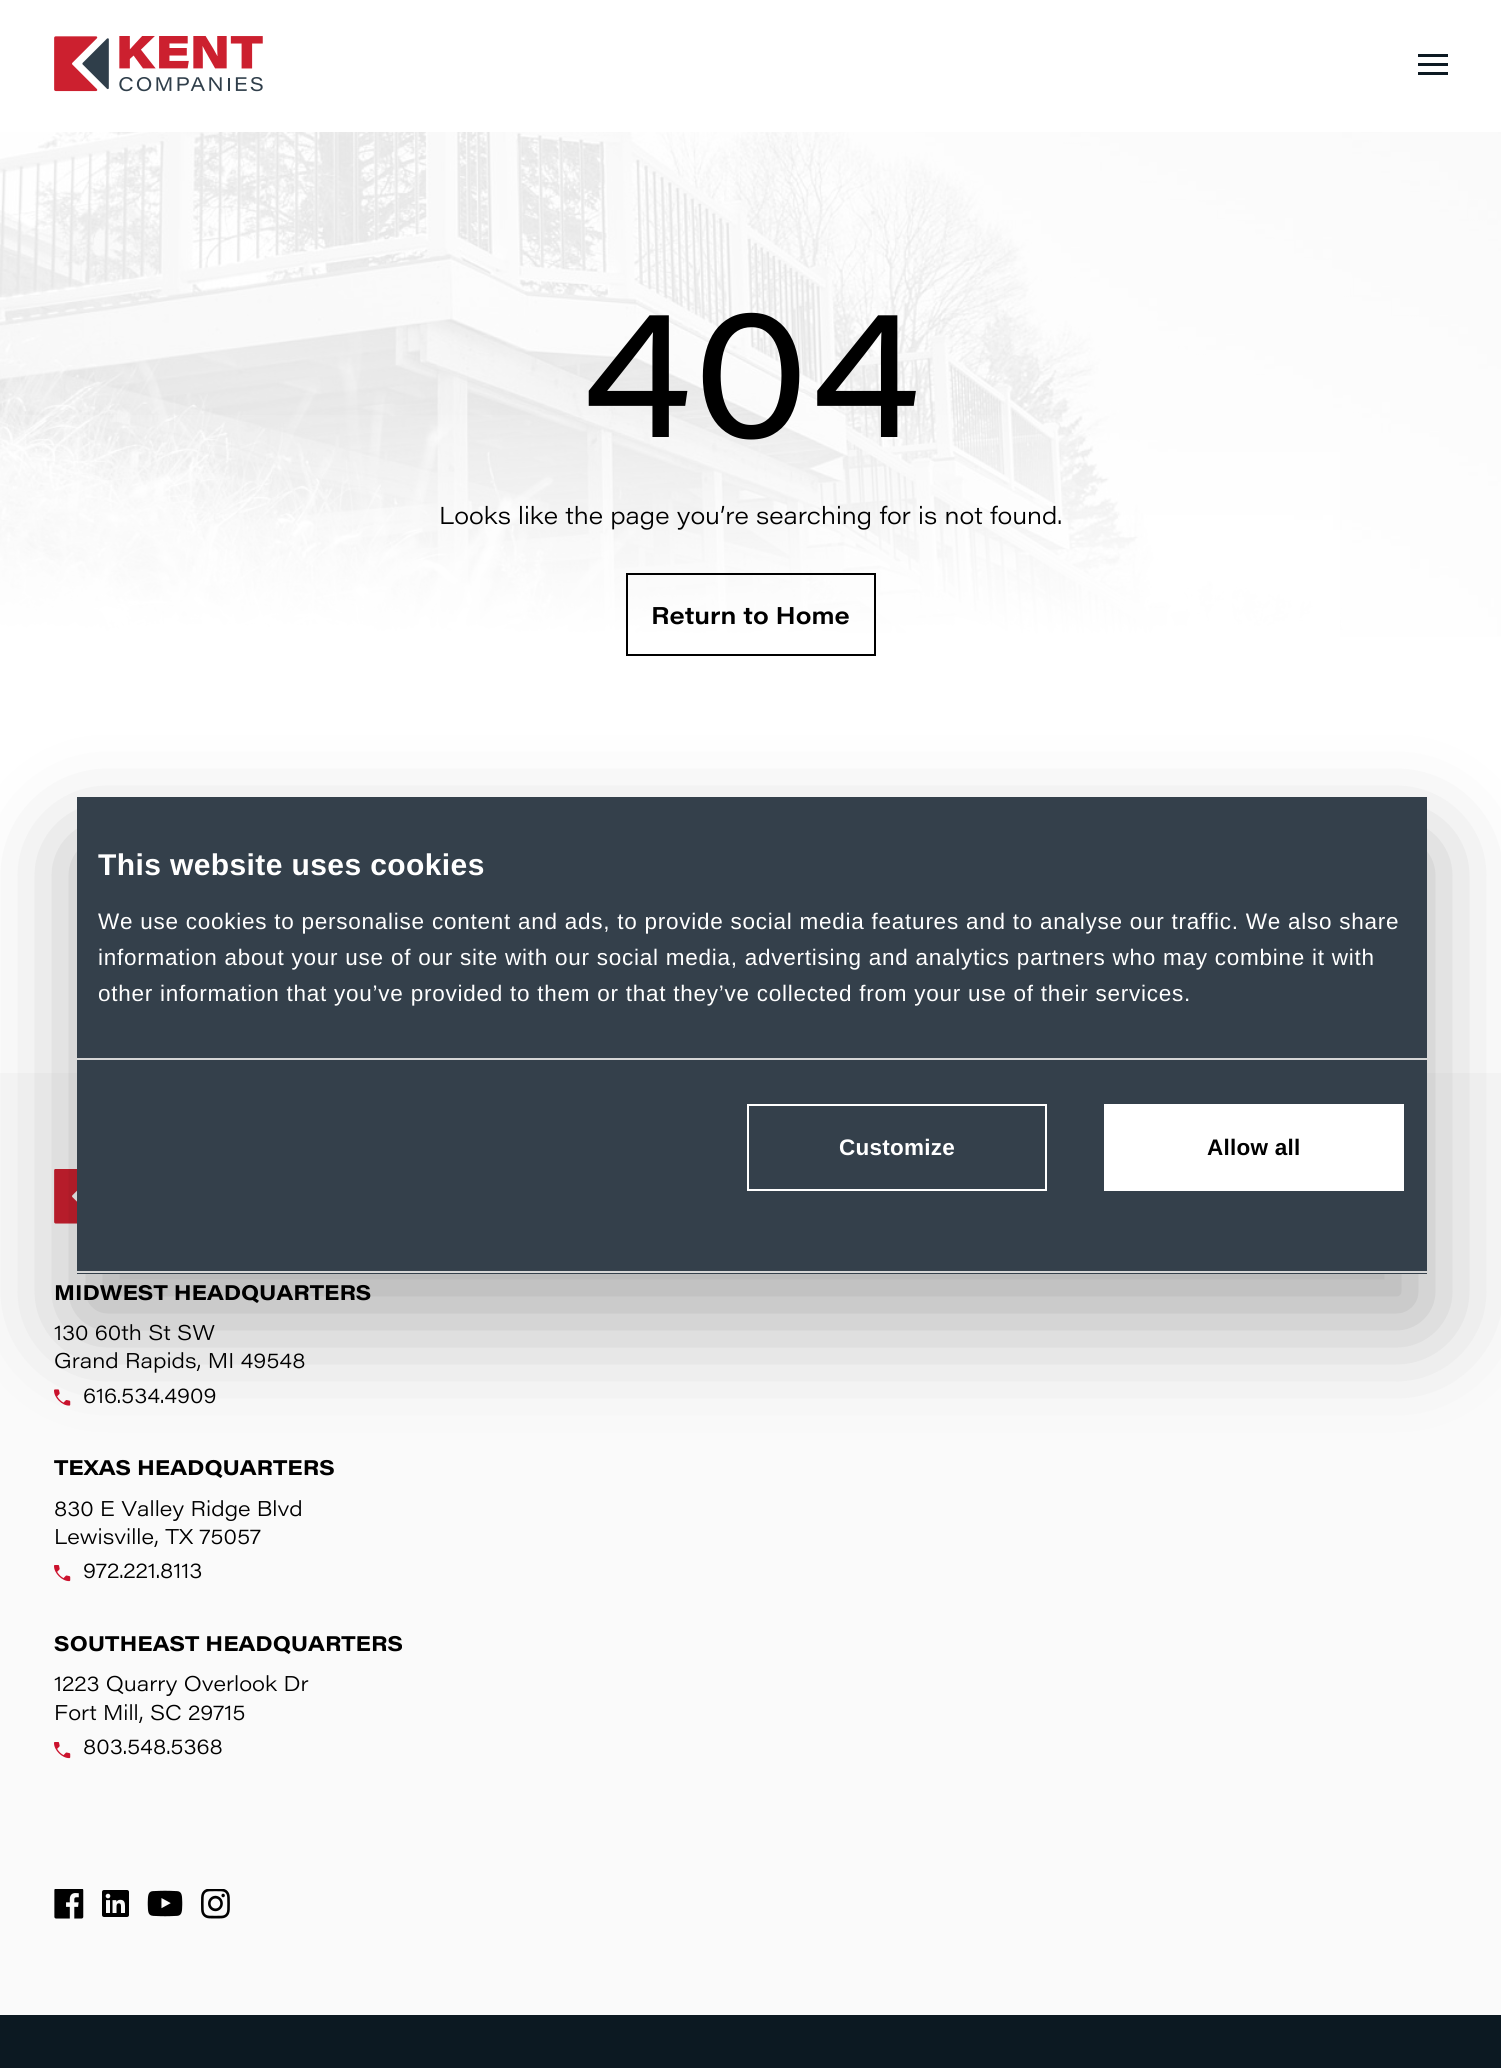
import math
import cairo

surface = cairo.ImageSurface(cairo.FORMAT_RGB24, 1501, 2068)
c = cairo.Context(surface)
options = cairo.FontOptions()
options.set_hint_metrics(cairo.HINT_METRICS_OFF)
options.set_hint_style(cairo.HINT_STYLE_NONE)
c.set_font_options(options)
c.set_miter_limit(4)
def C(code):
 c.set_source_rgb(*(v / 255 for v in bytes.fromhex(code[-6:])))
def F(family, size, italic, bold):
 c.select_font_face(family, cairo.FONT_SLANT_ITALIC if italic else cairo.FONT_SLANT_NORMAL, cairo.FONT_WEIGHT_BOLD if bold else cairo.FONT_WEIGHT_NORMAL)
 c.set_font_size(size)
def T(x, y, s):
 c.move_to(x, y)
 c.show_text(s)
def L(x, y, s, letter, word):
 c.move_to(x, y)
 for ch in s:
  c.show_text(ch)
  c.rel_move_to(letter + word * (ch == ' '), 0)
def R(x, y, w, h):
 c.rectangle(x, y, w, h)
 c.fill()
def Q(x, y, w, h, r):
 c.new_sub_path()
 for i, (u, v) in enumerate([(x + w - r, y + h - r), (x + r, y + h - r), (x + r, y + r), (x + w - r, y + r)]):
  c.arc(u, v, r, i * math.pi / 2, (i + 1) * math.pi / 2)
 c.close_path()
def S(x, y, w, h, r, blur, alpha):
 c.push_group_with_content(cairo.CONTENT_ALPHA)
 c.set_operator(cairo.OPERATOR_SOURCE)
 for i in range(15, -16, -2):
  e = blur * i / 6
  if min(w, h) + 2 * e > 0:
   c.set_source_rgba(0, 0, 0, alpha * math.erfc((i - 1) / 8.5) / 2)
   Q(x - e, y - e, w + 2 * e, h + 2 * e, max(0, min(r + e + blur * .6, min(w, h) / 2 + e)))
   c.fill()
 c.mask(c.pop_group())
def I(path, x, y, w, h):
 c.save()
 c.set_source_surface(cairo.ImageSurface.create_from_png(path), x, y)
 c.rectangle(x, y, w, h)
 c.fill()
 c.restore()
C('ffffff')
c.paint()
I('1.png',54,36,209,56)
C('0c1922')
R(1418,63,30,3)
R(1418,72,30,3)
R(1418,54,30,3)
I('2.png',0,132,1501,505)
gradient = cairo.LinearGradient(751,-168,751,1073)
gradient.add_color_stop_rgba(.45,1,1,1,0)
gradient.add_color_stop_rgba(.65,1,1,1,1)
c.set_source(gradient)
R(0,415,1340,222)
F('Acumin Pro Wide',180,0,0)
C('000000')
T(581,437,'404')
F('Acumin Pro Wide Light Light',24,0,0)
T(439,524,'Looks like the page you’re searching for is not found.')
c.rectangle(627,574,248,81)
c.stroke()
F('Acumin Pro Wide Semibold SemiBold',24,0,0)
T(651,624,'Return to Home')
C('fafafa')
R(0,1073,1501,942)
I('3.png',54,1169,23,55)
F('Acumin Pro Wide',21,0,1)
C('000000')
T(54,1300,'MIDWEST HEADQUARTERS')
F('Acumin Pro Wide Light Light',21,0,0)
T(54,1340,'130 60th St SW')
T(54,1368,'Grand Rapids, MI 49548')
I('4.png',54,1389,17,17)
T(83,1403,'616.534.4909')
F('Acumin Pro Wide',21,0,1)
T(54,1475,'TEXAS HEADQUARTERS')
F('Acumin Pro Wide Light Light',21,0,0)
T(54,1516,'830 E Valley Ridge Blvd')
T(54,1544,'Lewisville, TX 75057')
I('5.png',54,1565,17,17)
T(83,1578,'972.221.8113')
F('Acumin Pro Wide',21,0,1)
T(54,1651,'SOUTHEAST HEADQUARTERS')
F('Acumin Pro Wide Light Light',21,0,0)
T(54,1691,'1223 Quarry Overlook Dr')
T(54,1720,'Fort Mill, SC 29715')
I('5.png',54,1742,17,17)
T(83,1754,'803.548.5368')
I('6.png',54,1889,30,30)
I('7.png',102,1890,27,27)
I('8.png',147,1890,36,27)
I('9.png',201,1889,29,30)
C('0c1922')
R(0,2015,1501,53)
C('000000')
S(77,845,1350,477,0,51,.3)
C('34404b')
R(77,797,1350,477)
C('d6d6d6')
R(77,1058,1350,2)
F('Liberation Sans',30,0,1)
C('ffffff')
L(98,875,'This website uses cookies',.4,0)
F('Liberation Sans',22.5,0,0)
L(98,929,'We use cookies to personalise content and ads, to provide social media features and to analyse our traffic. We also share',.75,0)
L(98,965,'information about your use of our site with our social media, advertising and analytics partners who may combine it with',.75,0)
L(98,1001,'other information that you’ve provided to them or that they’ve collected from your use of their services.',.75,0)
C('d6d6d6')
R(77,1271,1350,2)
c.rectangle(748,1105,298,85)
C('ffffff')
c.stroke()
F('Liberation Sans',22.5,0,1)
L(839,1155,'Customize',.25,0)
R(1104,1104,300,87)
C('000000')
L(1207,1155,'Allow all',.25,0)
surface.write_to_png('o.png')
